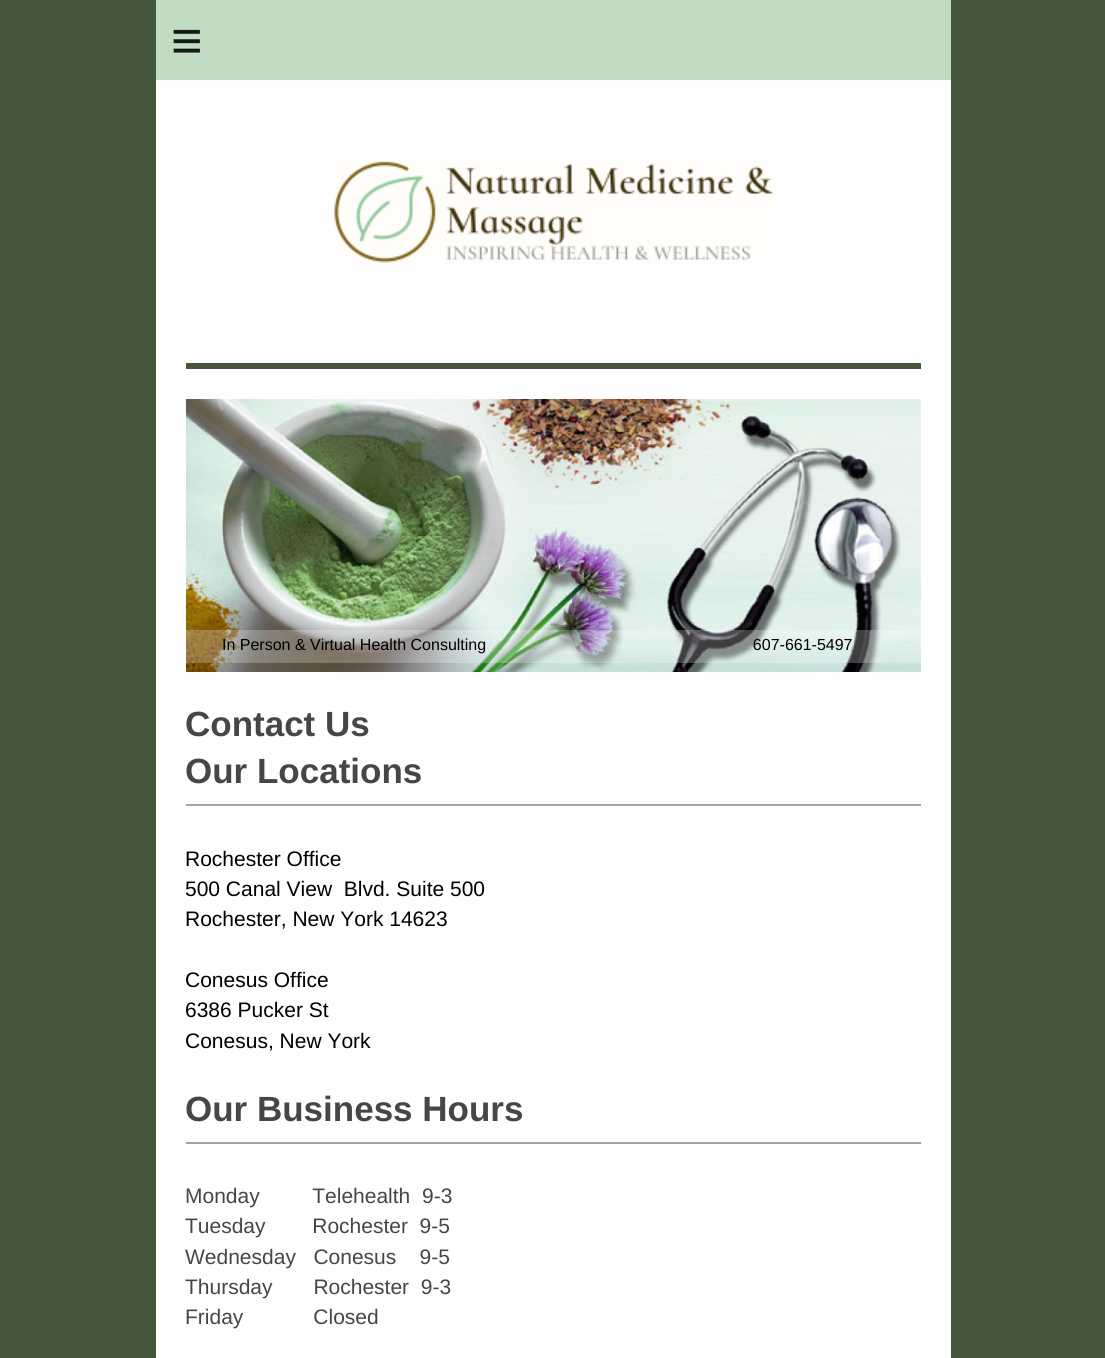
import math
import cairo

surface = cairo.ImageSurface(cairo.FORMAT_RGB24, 1105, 1358)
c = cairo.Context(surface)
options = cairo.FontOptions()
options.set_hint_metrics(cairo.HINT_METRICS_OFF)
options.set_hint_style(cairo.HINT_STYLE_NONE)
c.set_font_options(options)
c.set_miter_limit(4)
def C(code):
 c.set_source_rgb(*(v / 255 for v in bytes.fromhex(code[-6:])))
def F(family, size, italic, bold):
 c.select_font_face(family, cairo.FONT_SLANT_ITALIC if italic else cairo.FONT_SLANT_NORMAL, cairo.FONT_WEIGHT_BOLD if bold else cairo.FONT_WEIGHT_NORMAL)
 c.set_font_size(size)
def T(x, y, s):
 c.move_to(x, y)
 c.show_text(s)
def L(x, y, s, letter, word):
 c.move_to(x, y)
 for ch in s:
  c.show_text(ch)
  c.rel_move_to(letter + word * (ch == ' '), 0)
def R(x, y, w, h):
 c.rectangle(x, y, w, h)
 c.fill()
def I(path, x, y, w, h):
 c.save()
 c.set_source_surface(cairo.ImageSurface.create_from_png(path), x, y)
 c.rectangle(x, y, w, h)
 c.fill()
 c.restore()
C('45583e')
c.paint()
C('c2dcc3')
R(156,0,795,80)
F('Liberation Sans',54,0,0)
C('151916')
L(171,59,'≡',16,0)
C('fefefe')
R(156,80,795,1278)
I('1.png',334,161,441,102)
C('45583e')
R(186,363,735,6)
I('2.png',186,399,735,273)
c.set_source_rgba(1,1,1,0.24)
R(186,630,735,33)
F('Liberation Sans',16,0,0)
C('000000')
T(222,650,'In Person & Virtual Health Consulting                                                            607-661-5497')
F('Liberation Sans',35,0,1)
C('464646')
T(185,736,'Contact Us')
T(185,783,'Our Locations')
C('a2a2a2')
R(186,804,735,2)
F('Liberation Sans',21,0,0)
C('000000')
T(185,866,'Rochester Office')
T(185,896,'500 Canal View  Blvd. Suite 500')
T(185,926,'Rochester, New York 14623')
T(185,987,'Conesus Office')
T(185,1017,'6386 Pucker St')
T(185,1048,'Conesus, New York')
F('Liberation Sans',35,0,1)
C('464646')
T(185,1121,'Our Business Hours')
C('a2a2a2')
R(186,1142,735,2)
F('Liberation Sans',21,0,0)
C('464646')
T(185,1203,'Monday         Telehealth  9-3')
T(185,1233,'Tuesday        Rochester  9-5')
T(185,1264,'Wednesday   Conesus    9-5')
T(185,1294,'Thursday       Rochester  9-3')
T(185,1324,'Friday            Closed')
surface.write_to_png('o.png')
